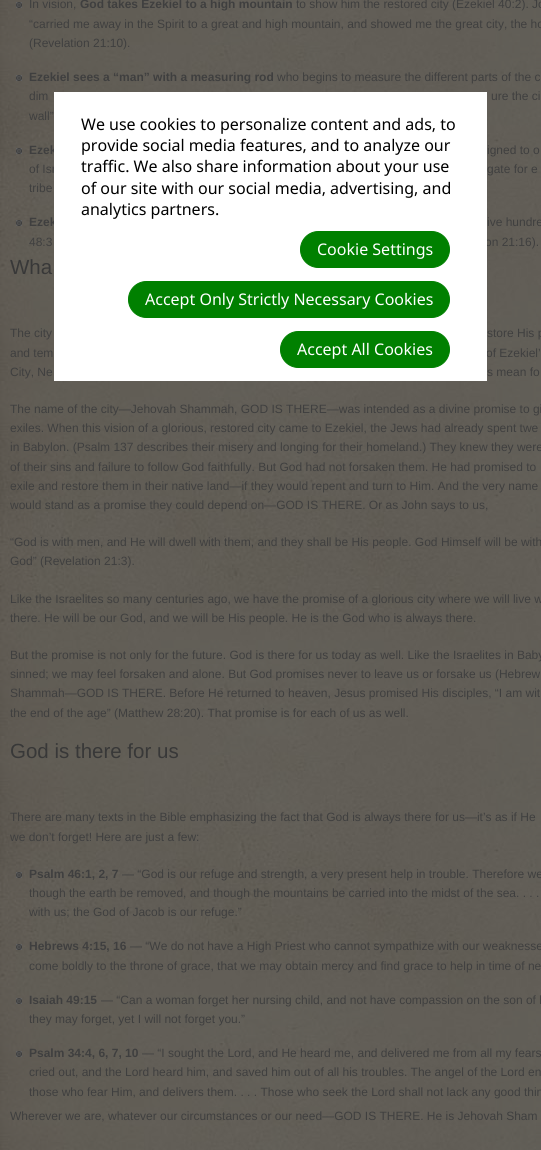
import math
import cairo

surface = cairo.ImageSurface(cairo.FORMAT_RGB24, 541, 1150)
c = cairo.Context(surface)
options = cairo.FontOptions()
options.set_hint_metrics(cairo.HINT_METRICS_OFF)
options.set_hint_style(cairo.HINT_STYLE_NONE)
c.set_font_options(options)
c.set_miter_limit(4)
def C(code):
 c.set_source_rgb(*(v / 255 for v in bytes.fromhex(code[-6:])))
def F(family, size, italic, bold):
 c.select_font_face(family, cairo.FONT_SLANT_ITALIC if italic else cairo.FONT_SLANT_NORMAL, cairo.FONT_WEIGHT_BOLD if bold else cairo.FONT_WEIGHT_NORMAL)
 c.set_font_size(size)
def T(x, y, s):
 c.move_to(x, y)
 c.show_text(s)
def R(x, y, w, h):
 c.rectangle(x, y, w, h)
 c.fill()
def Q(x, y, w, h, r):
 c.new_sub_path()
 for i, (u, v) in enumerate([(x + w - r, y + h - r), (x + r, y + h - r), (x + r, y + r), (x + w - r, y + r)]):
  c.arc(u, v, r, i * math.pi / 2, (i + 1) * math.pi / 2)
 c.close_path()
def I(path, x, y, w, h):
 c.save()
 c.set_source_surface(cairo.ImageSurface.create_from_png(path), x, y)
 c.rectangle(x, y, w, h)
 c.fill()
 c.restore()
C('ffffff')
c.paint()
I('1.png',0,0,541,1150)
I('2.png',16,2,6,6)
F('Liberation Sans',12,0,0)
C('3f3f3f')
T(29,8,'In vision,')
F('Liberation Sans',12,0,1)
T(80,8,'God takes Ezekiel to a high mountain')
F('Liberation Sans',12,0,0)
T(296,8,'to show him the restored city (Ezekiel 40:2). Jo')
T(29,28,'“carried me away in the Spirit to a great and high mountain, and showed me the great city, the ho')
T(29,47,'(Revelation 21:10).')
I('2.png',16,75,6,6)
F('Liberation Sans',12,0,1)
T(29,81,'Ezekiel sees a “man” with a measuring rod')
F('Liberation Sans',12,0,0)
T(277,81,'who begins to measure the different parts of the c')
T(29,100,'dim')
T(491,100,'ure the ci')
T(29,120,'wall”')
I('2.png',16,148,6,6)
F('Liberation Sans',12,0,1)
T(29,154,'Ezek')
F('Liberation Sans',12,0,0)
T(487,154,'igned to o')
T(29,173,'of Isr')
T(487,173,'gate for e')
T(29,192,'tribe')
I('2.png',16,220,6,6)
F('Liberation Sans',12,0,1)
T(29,226,'Ezek')
F('Liberation Sans',12,0,0)
T(487,226,'ive hundre')
T(29,246,'48:3')
T(485,246,'on 21:16).')
F('Liberation Sans',20.5,0,0)
C('383838')
T(10,274,'Wha')
F('Liberation Sans',12,0,0)
C('3f3f3f')
T(10,337,'The city')
T(487,337,'store His p')
T(10,357,'and tem')
T(486,357,'of Ezekiel’')
T(10,376,'City, Ne')
T(487,376,'s mean fo')
T(10,413,'The name of the city—Jehovah Shammah, GOD IS THERE—was intended as a divine promise to gi')
T(10,432,'exiles. When this vision of a glorious, restored city came to Ezekiel, the Jews had already spent twe')
T(10,451,'in Babylon. (Psalm 137 describes their misery and longing for their homeland.) They knew they were')
T(10,471,'of their sins and failure to follow God faithfully. But God had not forsaken them. He had promised to')
T(10,490,'exile and restore them in their native land—if they would repent and turn to Him. And the very name')
T(10,509,'would stand as a promise they could depend on—GOD IS THERE. Or as John says to us,')
T(10,546,'“God is with men, and He will dwell with them, and they shall be His people. God Himself will be with')
T(10,565,'God” (Revelation 21:3).')
T(10,603,'Like the Israelites so many centuries ago, we have the promise of a glorious city where we will live w')
T(10,622,'there. He will be our God, and we will be His people. He is the God who is always there.')
T(10,659,'But the promise is not only for the future. God is there for us today as well. Like the Israelites in Baby')
T(10,678,'sinned; we may feel forsaken and alone. But God promises never to leave us or forsake us (Hebrew')
T(10,697,'Shammah—GOD IS THERE. Before He returned to heaven, Jesus promised His disciples, “I am wit')
T(10,717,'the end of the age” (Matthew 28:20). That promise is for each of us as well.')
F('Liberation Sans',20.5,0,0)
C('383838')
T(10,758,'God is there for us')
F('Liberation Sans',12,0,0)
C('3f3f3f')
T(10,821,'There are many texts in the Bible emphasizing the fact that God is always there for us—it’s as if He')
T(10,841,'we don’t forget! Here are just a few:')
I('2.png',16,872,6,6)
F('Liberation Sans',12,0,1)
T(29,878,'Psalm 46:1, 2, 7')
F('Liberation Sans',12,0,0)
T(122,878,'— “God is our refuge and strength, a very present help in trouble. Therefore we')
T(29,897,'though the earth be removed, and though the mountains be carried into the midst of the sea. . . .')
T(29,916,'with us; the God of Jacob is our refuge.”')
I('2.png',16,944,6,6)
F('Liberation Sans',12,0,1)
T(29,950,'Hebrews 4:15, 16')
F('Liberation Sans',12,0,0)
T(130,950,'— “We do not have a High Priest who cannot sympathize with our weaknesse')
T(29,970,'come boldly to the throne of grace, that we may obtain mercy and find grace to help in time of ne')
I('2.png',16,998,6,6)
F('Liberation Sans',12,0,1)
T(29,1004,'Isaiah 49:15')
F('Liberation Sans',12,0,0)
T(101,1004,'— “Can a woman forget her nursing child, and not have compassion on the son of h')
T(29,1023,'they may forget, yet I will not forget you.”')
I('2.png',16,1051,6,6)
F('Liberation Sans',12,0,1)
T(29,1057,'Psalm 34:4, 6, 7, 10')
F('Liberation Sans',12,0,0)
T(142,1057,'— “I sought the Lord, and He heard me, and delivered me from all my fears')
T(29,1076,'cried out, and the Lord heard him, and saved him out of all his troubles. The angel of the Lord en')
T(29,1096,'those who fear Him, and delivers them. . . . Those who seek the Lord shall not lack any good thin')
T(10,1120,'Wherever we are, whatever our circumstances or our need—GOD IS THERE. He is Jehovah Sham')
C('ffffff')
R(54,92,433,289)
F('Noto Sans',16,0,0)
C('000000')
T(81,130,'We use cookies to personalize content and ads, to')
T(81,151,'provide social media features, and to analyze our')
T(81,172,'traffic. We also share information about your use')
T(81,194,'of our site with our social media, advertising, and')
T(81,215,'analytics partners.')
C('008000')
Q(300.5,231.5,149,36,18)
c.fill_preserve()
c.set_line_width(1)
c.stroke()
C('ffffff')
T(317,255,'Cookie Settings')
C('008000')
Q(128.5,281.5,321,36,18)
c.fill_preserve()
c.stroke()
C('ffffff')
T(145,305,'Accept Only Strictly Necessary Cookies')
C('008000')
Q(280.5,331.5,169,36,18)
c.fill_preserve()
c.stroke()
C('ffffff')
T(297,355,'Accept All Cookies')
surface.write_to_png('o.png')
